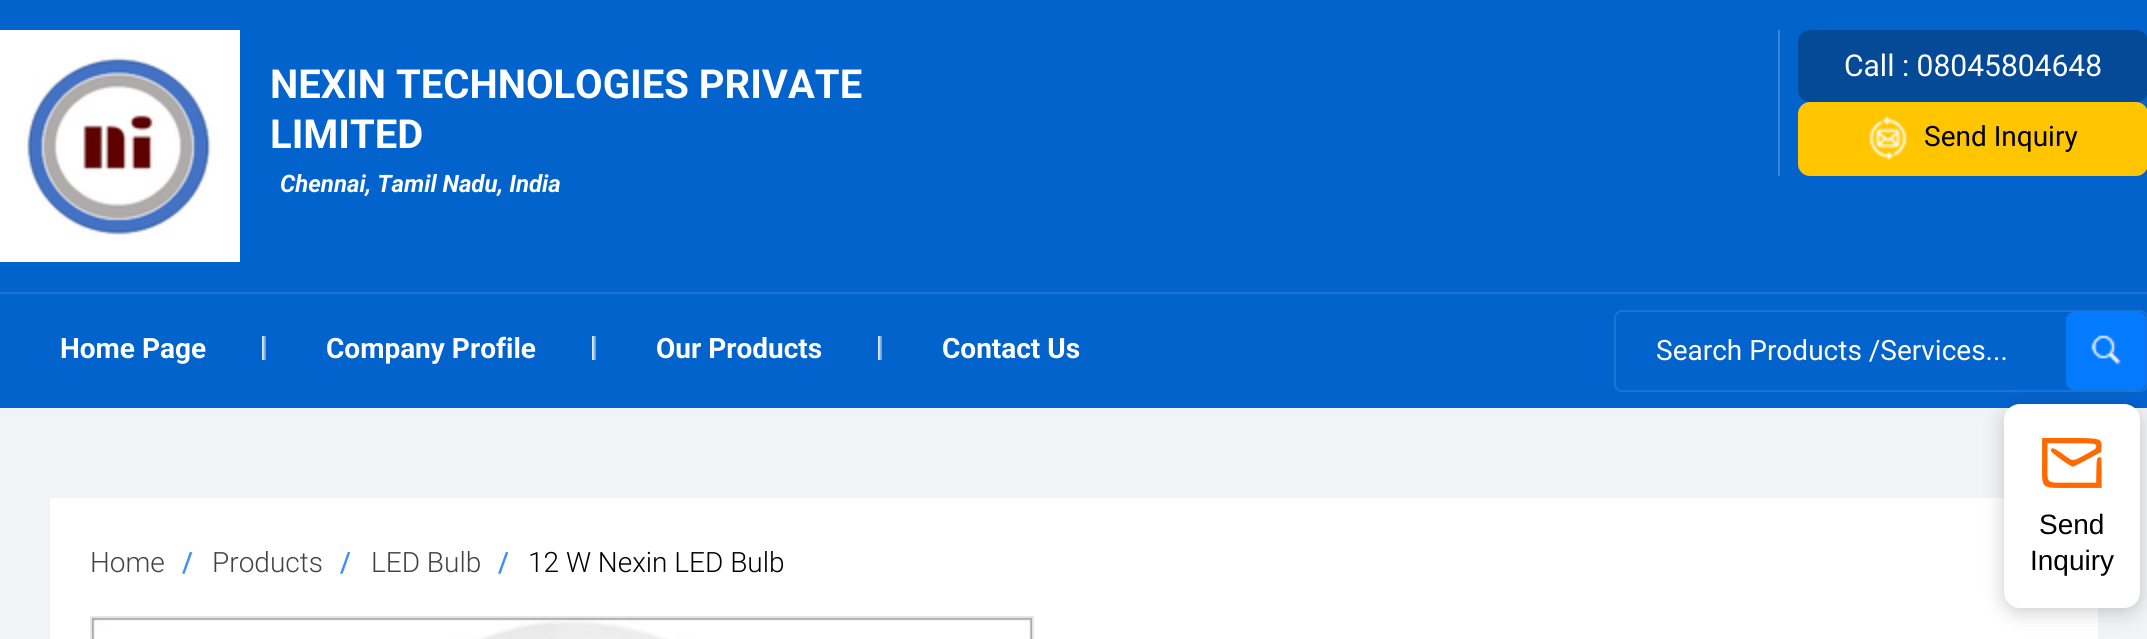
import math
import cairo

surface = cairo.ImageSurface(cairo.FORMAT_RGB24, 2147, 639)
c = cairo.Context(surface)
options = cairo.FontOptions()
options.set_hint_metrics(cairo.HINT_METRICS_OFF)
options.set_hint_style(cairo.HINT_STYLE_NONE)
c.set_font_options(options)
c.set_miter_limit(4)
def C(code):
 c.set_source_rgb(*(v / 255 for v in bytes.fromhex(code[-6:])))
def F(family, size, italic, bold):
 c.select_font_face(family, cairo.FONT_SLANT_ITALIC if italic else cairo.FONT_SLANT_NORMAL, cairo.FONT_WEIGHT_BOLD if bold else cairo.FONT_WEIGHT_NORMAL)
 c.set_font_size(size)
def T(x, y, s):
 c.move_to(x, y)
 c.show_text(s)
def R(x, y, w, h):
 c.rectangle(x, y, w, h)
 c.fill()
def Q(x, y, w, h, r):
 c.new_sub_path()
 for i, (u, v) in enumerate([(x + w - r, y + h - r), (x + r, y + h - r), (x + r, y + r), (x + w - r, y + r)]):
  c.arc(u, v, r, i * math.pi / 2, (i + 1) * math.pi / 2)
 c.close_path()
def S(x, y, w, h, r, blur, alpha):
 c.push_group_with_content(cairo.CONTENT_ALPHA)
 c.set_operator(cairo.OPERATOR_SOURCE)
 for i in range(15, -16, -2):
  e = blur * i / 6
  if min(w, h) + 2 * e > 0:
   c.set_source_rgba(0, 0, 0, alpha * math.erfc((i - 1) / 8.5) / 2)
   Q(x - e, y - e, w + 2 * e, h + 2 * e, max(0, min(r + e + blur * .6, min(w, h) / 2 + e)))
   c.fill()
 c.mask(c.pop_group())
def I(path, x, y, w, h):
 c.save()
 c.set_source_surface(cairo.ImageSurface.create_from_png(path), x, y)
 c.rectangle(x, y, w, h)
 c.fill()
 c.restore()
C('f2f3f7')
c.paint()
C('0363cd')
R(0,0,2147,292)
I('1.png',0,30,240,232)
F('Roboto',40,0,1)
C('ffffff')
T(270,98,'NEXIN TECHNOLOGIES PRIVATE')
T(270,148,'LIMITED')
F('Roboto',24,1,1)
T(280,192,'Chennai, Tamil Nadu, India')
C('3a85d7')
R(1778,30,2,146)
C('044a96')
Q(1798,30,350,72,12)
c.fill()
F('Roboto',30,0,0)
C('ffffff')
T(1844,76,'Call : 08045804648')
C('ffc600')
Q(1798,102,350,74,12)
c.fill()
I('2.png',1869,116,38,45)
F('Roboto',28,0,0)
C('000000')
T(1924,146,'Send Inquiry')
C('0363cd')
R(0,294,2147,114)
C('1d73d2')
R(0,292,2147,2)
I('3.png',262,336,4,24)
F('Roboto',28,0,1)
C('ffffff')
T(60,358,'Home Page')
I('3.png',592,336,4,24)
T(326,358,'Company Profile')
I('3.png',878,336,4,24)
T(656,358,'Our Products')
T(942,358,'Contact Us')
Q(1615,311,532,80,7)
C('1d73d2')
c.stroke()
F('Roboto',28,0,0)
C('ffffff')
T(1656,360,'Search Products /Services...')
C('047afe')
Q(2066,312,80,78,8)
c.fill()
I('4.png',2091,335,30,30)
C('ffffff')
R(50,498,2048,141)
F('Roboto Light',28,0,0)
C('434343')
T(90,572,'Home')
F('Roboto Medium',28,0,0)
C('3990ff')
T(182,572,'/')
F('Roboto Light',28,0,0)
C('434343')
T(212,572,'Products')
F('Roboto Medium',28,0,0)
C('3990ff')
T(340,572,'/')
F('Roboto Light',28,0,0)
C('434343')
T(371,572,'LED Bulb')
F('Roboto Medium',28,0,0)
C('3990ff')
T(498,572,'/')
F('Roboto Light',28,0,0)
C('000000')
T(528,572,'12 W Nexin LED Bulb')
c.rectangle(91,617,942,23)
C('e6e6e6')
c.stroke()
I('5.png',92,618,940,21)
C('000000')
S(2004,408,136,204,16,10,.2)
C('ffffff')
Q(2004,404,136,204,16)
c.fill()
I('6.png',2042,438,60,50)
F('Liberation Sans',28,0,0)
C('000000')
T(2039,534,'Send')
T(2030,570,'Inquiry')
surface.write_to_png('o.png')
